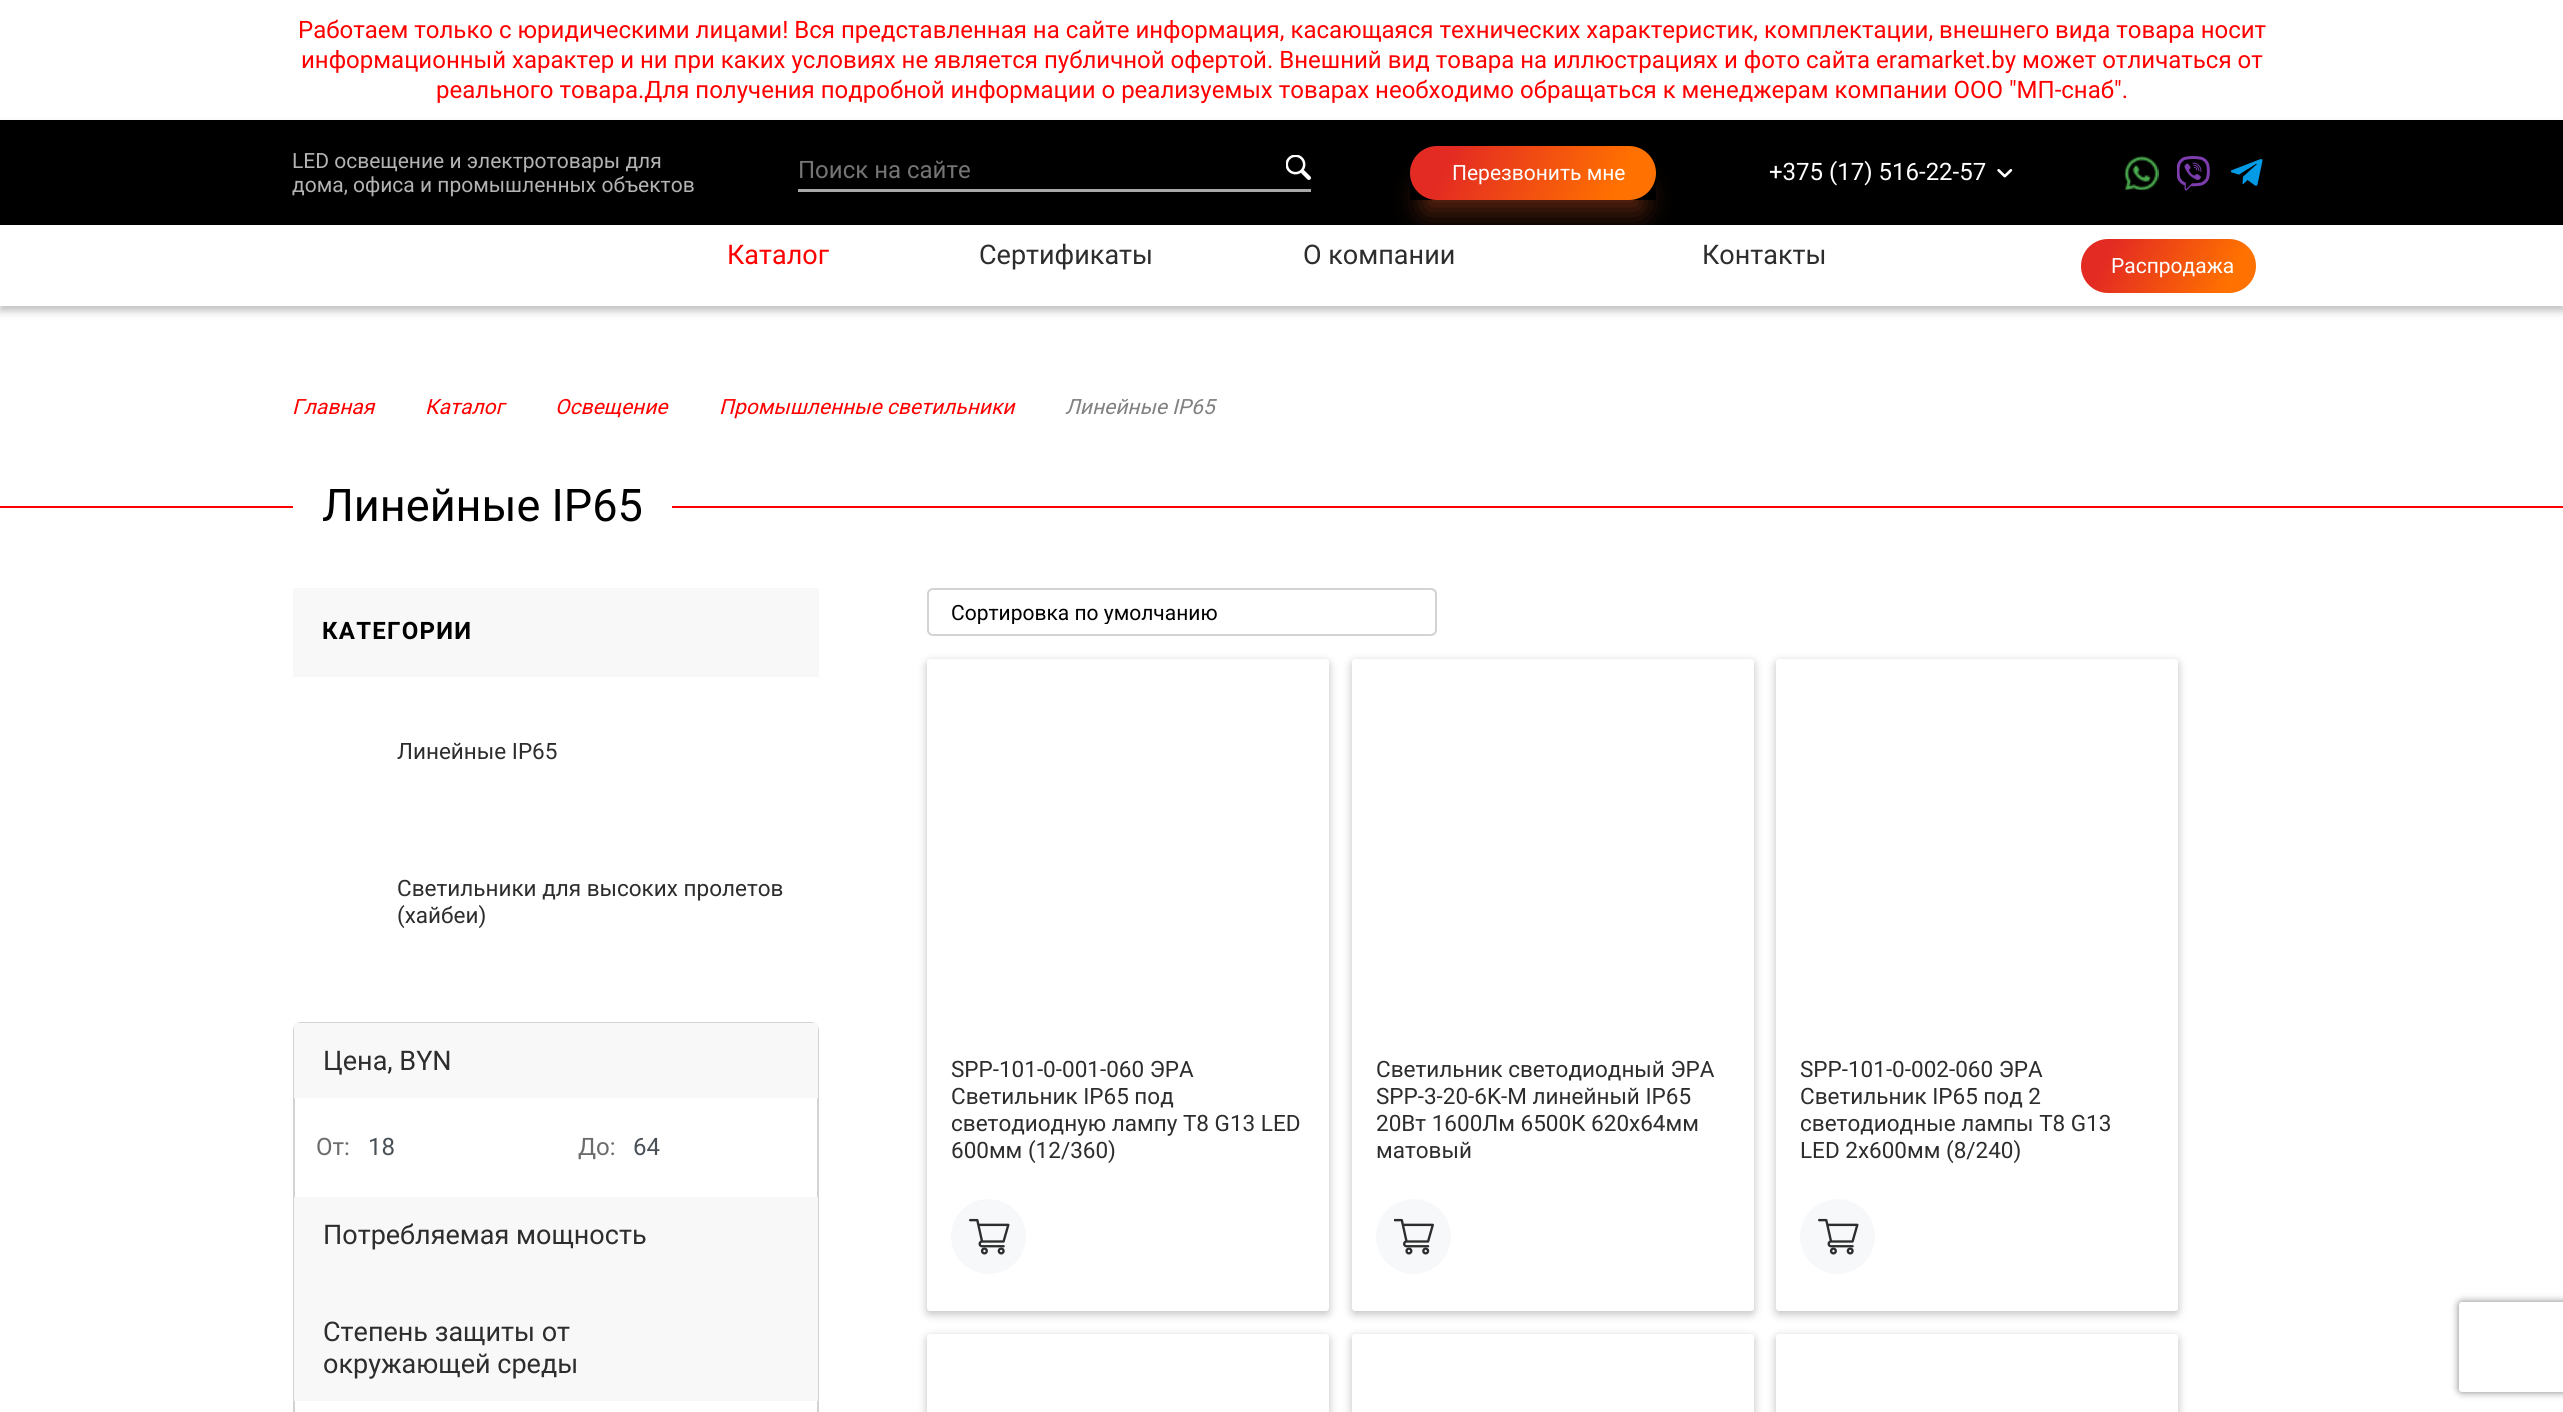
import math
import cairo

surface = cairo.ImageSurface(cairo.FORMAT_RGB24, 2563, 1412)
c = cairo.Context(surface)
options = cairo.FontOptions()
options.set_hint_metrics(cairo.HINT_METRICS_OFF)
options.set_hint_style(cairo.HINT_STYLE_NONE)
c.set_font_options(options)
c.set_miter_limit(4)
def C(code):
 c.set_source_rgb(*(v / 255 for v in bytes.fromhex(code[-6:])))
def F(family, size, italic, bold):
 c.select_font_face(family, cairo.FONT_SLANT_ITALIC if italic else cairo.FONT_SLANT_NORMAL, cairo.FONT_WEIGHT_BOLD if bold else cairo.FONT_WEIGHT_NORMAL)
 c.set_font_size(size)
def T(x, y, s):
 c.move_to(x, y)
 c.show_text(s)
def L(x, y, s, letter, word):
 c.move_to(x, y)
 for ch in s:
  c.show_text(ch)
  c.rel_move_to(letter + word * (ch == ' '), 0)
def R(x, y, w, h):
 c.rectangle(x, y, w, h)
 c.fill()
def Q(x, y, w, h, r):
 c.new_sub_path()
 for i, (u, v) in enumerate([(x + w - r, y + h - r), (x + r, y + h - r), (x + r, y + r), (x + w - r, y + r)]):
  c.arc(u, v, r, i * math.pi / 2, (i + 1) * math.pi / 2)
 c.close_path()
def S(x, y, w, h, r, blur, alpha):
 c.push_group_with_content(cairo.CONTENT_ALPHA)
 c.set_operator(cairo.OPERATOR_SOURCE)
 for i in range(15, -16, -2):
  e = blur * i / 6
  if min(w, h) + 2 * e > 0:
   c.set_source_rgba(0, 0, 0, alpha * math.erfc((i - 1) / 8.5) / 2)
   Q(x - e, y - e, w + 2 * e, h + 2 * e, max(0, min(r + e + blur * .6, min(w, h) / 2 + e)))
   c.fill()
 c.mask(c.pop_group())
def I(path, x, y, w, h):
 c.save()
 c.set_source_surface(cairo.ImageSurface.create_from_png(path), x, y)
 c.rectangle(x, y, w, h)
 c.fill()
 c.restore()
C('ffffff')
c.paint()
F('Roboto',24,0,0)
C('ff0000')
T(298,38,'Работаем только с юридическими лицами! Вся представленная на сайте информация, касающаяся технических характеристик, комплектации, внешнего вида товара носит')
T(301,68,'информационный характер и ни при каких условиях не является публичной офертой. Внешний вид товара на иллюстрациях и фото сайта eramarket.by может отличаться от')
T(436,98,'реального товара.Для получения подробной информации о реализуемых товарах необходимо обращаться к менеджерам компании ООО "МП-снаб".')
C('000000')
S(0,125,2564,105,0,4,.25)
C('000000')
R(0,120,2563,105)
F('Roboto',21,0,0)
C('b3b3b3')
T(292,168,'LED освещение и электротовары для')
T(292,192,'дома, офиса и промышленных объектов')
C('a8a8a8')
R(798,189,513,3)
F('Roboto',24,0,0)
C('757575')
T(798,178,'Поиск на сайте')
I('1.png',1286,155,25,25)
gradient = cairo.LinearGradient(1423,119,1643,226)
gradient.add_color_stop_rgba(.16,0.89,0.165,0.137,1)
gradient.add_color_stop_rgba(.84,1,0.443,0,1)
c.set_source(gradient)
Q(1410,146,246,54,27)
c.fill()
c.save()
c.set_fill_rule(cairo.FILL_RULE_EVEN_ODD)
c.new_path()
c.move_to(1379,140)
c.line_to(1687,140)
c.line_to(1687,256)
c.line_to(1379,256)
c.close_path()
c.move_to(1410,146)
c.line_to(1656,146)
c.line_to(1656,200)
c.line_to(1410,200)
c.close_path()
c.clip()
C('ff642c')
S(1425,186,216,24,0,15,.4)
c.restore()
F('Roboto',21,0,0)
C('ffffff')
T(1452,180,'Перезвонить мне')
F('Roboto',24,0,0)
T(1769,180,'+375 (17) 516-22-57')
I('2.png',1997,169,16,9)
I('3.png',2124,156,35,34)
I('4.png',2177,156,33,35)
I('5.png',2231,159,32,27)
C('000000')
S(0,230,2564,81,0,4,.25)
C('ffffff')
R(0,225,2563,81)
F('Roboto',27,0,0)
C('ff0000')
T(727,264,'Каталог')
C('2d2d2d')
T(979,264,'Сертификаты')
T(1303,264,'О компании')
T(1702,264,'Контакты')
gradient = cairo.LinearGradient(2087,226,2250,305)
gradient.add_color_stop_rgba(.16,0.89,0.165,0.137,1)
gradient.add_color_stop_rgba(.84,1,0.443,0,1)
c.set_source(gradient)
Q(2081,239,175,54,27)
c.fill()
F('Roboto',21,0,0)
C('ffffff')
T(2111,273,'Распродажа')
F('Roboto',21,1,0)
C('ff0000')
T(292,414,'Главная')
T(425,414,'Каталог')
T(555,414,'Освещение')
T(719,414,'Промышленные светильники')
C('818181')
T(1065,414,'Линейные IP65')
C('ff0000')
R(0,506,2563,2)
C('ffffff')
R(293,506,379,2)
F('Roboto',45,0,0)
C('000000')
T(322,521,'Линейные IP65')
C('f8f8f8')
R(293,588,526,89)
F('Roboto',24,0,1)
C('000000')
L(322,639,'КАТЕГОРИИ',1.25,0)
F('Roboto',22.5,0,0)
C('2d2d2d')
T(397,759,'Линейные IP65')
T(397,896,'Светильники для высоких пролетов')
T(397,923,'(хайбеи)')
Q(294,1023,524,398,7)
C('d3d3d3')
c.stroke()
C('f8f8f8')
R(294,1023,524,75)
F('Roboto',27,0,0)
C('2d2d2d')
T(323,1070,'Цена, BYN')
F('Roboto',24,0,0)
C('6c6c6c')
T(316,1155,'От:')
C('495057')
T(368,1155,'18')
C('6c6c6c')
T(578,1155,'До:')
C('495057')
T(633,1155,'64')
C('f8f8f8')
R(294,1197,524,204)
F('Roboto',27,0,0)
C('2d2d2d')
T(323,1244,'Потребляемая мощность')
T(323,1341,'Степень защиты от')
T(323,1373,'окружающей среды')
Q(928,589,508,46,5)
C('d3d3d3')
c.stroke()
c.save()
c.rectangle(951,600,485,24)
c.clip()
F('Roboto',21,0,0)
C('000000')
T(951,620,'Сортировка по умолчанию')
c.restore()
C('000000')
S(927,662,402,652,3,4.5,.25)
C('ffffff')
Q(927,659,402,652,3)
c.fill()
F('Roboto',22.5,0,0)
C('2d2d2d')
T(951,1077,'SPP-101-0-001-060 ЭРА')
T(951,1104,'Светильник IP65 под')
T(951,1131,'светодиодную лампу T8 G13 LED')
T(951,1158,'600мм (12/360)')
C('f7f8fa')
c.new_path()
c.arc(988.5,1236.5,37.5,0,2 * math.pi)
c.fill()
I('6.png',969,1218,41,37)
C('000000')
S(1352,662,402,652,3,4.5,.25)
C('ffffff')
Q(1352,659,402,652,3)
c.fill()
C('2d2d2d')
T(1376,1077,'Светильник светодиодный ЭРА')
T(1376,1104,'SPP-3-20-6K-M линейный IP65')
T(1376,1131,'20Вт 1600Лм 6500К 620х64мм')
T(1376,1158,'матовый')
C('f7f8fa')
c.new_path()
c.arc(1413.5,1236.5,37.5,0,2 * math.pi)
c.fill()
I('7.png',1394,1218,40,37)
C('000000')
S(1776,662,402,652,3,4.5,.25)
C('ffffff')
Q(1776,659,402,652,3)
c.fill()
C('2d2d2d')
T(1800,1077,'SPP-101-0-002-060 ЭРА')
T(1800,1104,'Светильник IP65 под 2')
T(1800,1131,'светодиодные лампы T8 G13')
T(1800,1158,'LED 2x600мм (8/240)')
C('f7f8fa')
c.new_path()
c.arc(1837.5,1236.5,37.5,0,2 * math.pi)
c.fill()
I('6.png',1818,1218,41,37)
c.save()
c.set_fill_rule(cairo.FILL_RULE_EVEN_ODD)
c.new_path()
c.move_to(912,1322)
c.line_to(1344,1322)
c.line_to(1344,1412)
c.line_to(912,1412)
c.close_path()
c.move_to(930,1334)
c.line_to(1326,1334)
c.curve_to(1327.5,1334,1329,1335.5,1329,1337)
c.line_to(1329,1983)
c.curve_to(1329,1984.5,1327.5,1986,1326,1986)
c.line_to(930,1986)
c.curve_to(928.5,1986,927,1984.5,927,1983)
c.line_to(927,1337)
c.curve_to(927,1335.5,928.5,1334,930,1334)
c.close_path()
c.clip()
C('000000')
S(927,1337,402,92,3,4.5,.25)
c.restore()
C('000000')
S(1352,1337,402,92,3,4.5,.25)
C('ffffff')
Q(1352,1334,402,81,3)
c.fill()
c.save()
c.set_fill_rule(cairo.FILL_RULE_EVEN_ODD)
c.new_path()
c.move_to(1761,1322)
c.line_to(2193,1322)
c.line_to(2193,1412)
c.line_to(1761,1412)
c.close_path()
c.move_to(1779,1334)
c.line_to(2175,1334)
c.curve_to(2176.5,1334,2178,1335.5,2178,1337)
c.line_to(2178,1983)
c.curve_to(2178,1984.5,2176.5,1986,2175,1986)
c.line_to(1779,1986)
c.curve_to(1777.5,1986,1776,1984.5,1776,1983)
c.line_to(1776,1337)
c.curve_to(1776,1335.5,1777.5,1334,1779,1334)
c.close_path()
c.clip()
C('000000')
S(1776,1337,402,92,3,4.5,.25)
c.restore()
c.save()
c.set_fill_rule(cairo.FILL_RULE_EVEN_ODD)
c.new_path()
c.move_to(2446,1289)
c.line_to(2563,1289)
c.line_to(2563,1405)
c.line_to(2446,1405)
c.close_path()
c.move_to(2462,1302)
c.line_to(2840,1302)
c.curve_to(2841.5,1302,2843,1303.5,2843,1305)
c.line_to(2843,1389)
c.curve_to(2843,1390.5,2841.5,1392,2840,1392)
c.line_to(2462,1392)
c.curve_to(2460.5,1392,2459,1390.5,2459,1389)
c.line_to(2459,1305)
c.curve_to(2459,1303.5,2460.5,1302,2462,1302)
c.close_path()
c.clip()
C('808080')
S(2459,1302,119,90,3,4,1)
c.restore()
surface.write_to_png('o.png')
